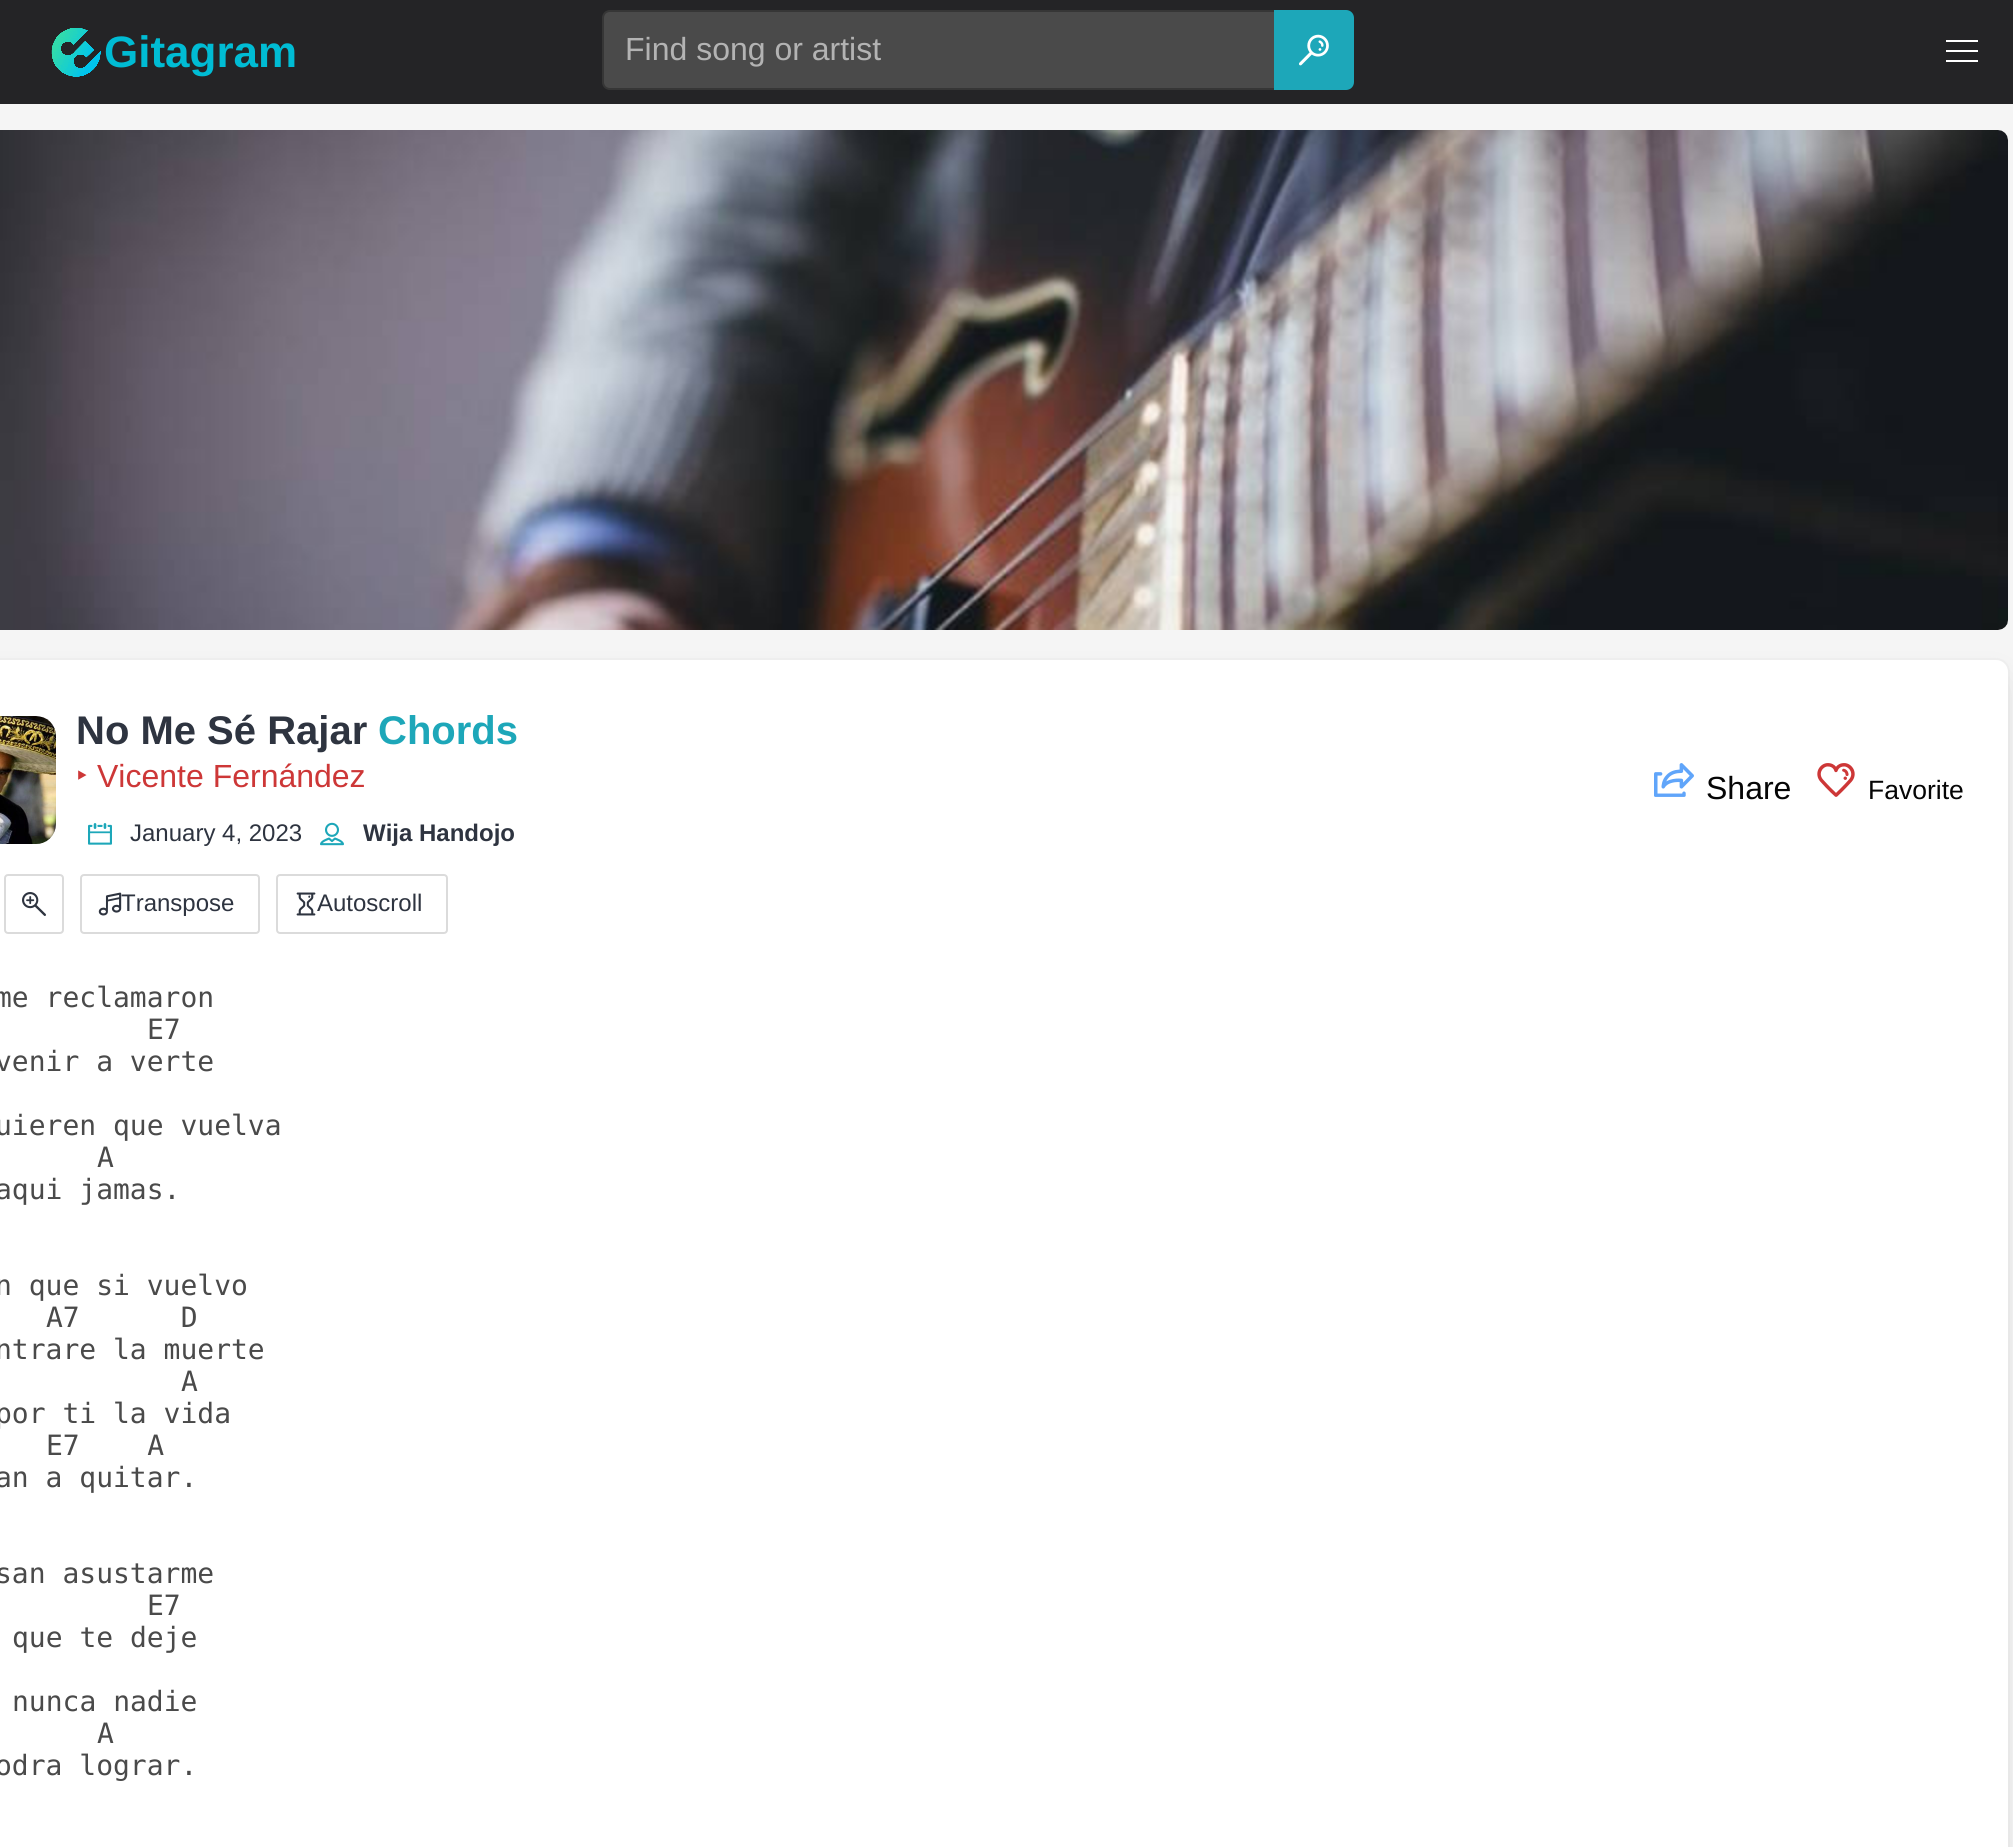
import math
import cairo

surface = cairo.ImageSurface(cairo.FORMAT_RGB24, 2013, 1847)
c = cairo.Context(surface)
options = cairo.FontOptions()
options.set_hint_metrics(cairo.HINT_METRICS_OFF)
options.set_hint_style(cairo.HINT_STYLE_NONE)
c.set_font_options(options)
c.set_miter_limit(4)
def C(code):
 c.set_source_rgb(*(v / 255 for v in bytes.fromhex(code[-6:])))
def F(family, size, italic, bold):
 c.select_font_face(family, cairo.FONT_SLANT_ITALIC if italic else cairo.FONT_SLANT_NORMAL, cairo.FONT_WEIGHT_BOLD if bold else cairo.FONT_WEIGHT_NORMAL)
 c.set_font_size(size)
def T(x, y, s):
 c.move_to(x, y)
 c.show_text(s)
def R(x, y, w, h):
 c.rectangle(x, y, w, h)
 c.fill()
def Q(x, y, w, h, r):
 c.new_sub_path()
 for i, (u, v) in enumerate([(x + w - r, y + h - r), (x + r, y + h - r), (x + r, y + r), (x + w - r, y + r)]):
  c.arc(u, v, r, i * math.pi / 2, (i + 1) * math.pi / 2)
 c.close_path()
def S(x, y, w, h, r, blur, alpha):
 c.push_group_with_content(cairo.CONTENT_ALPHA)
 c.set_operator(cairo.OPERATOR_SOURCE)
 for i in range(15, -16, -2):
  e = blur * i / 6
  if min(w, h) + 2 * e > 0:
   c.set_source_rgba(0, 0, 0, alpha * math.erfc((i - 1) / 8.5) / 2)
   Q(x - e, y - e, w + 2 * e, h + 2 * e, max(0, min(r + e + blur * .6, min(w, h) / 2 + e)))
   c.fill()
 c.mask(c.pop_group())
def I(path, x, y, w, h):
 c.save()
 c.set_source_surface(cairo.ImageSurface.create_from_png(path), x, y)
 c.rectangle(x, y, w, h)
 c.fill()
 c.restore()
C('f5f5f5')
c.paint()
C('242426')
R(0,0,2013,104)
I('1.png',51,28,50,49)
F('Liberation Sans',44,0,1)
C('00bcd4')
T(104,67,'Gitagram')
C('4a4a4a')
c.new_path()
c.move_to(610,11)
c.line_to(1275,11)
c.line_to(1275,89)
c.line_to(610,89)
c.curve_to(606,89,603,86,603,82)
c.line_to(603,18)
c.curve_to(603,14,606,11,610,11)
c.close_path()
c.fill_preserve()
C('363636')
c.stroke()
F('Liberation Sans',32,0,0)
C('b3b3b3')
T(625,60,'Find song or artist')
C('1da7b9')
c.new_path()
c.move_to(1274,10)
c.line_to(1346,10)
c.curve_to(1350.5,10,1354,13.5,1354,18)
c.line_to(1354,82)
c.curve_to(1354,86.5,1350.5,90,1346,90)
c.line_to(1274,90)
c.close_path()
c.fill()
I('2.png',1299,34,30,32)
C('ffffff')
R(1946,40,32,2)
R(1946,50,32,2)
R(1946,60,32,2)
I('3.png',0,130,2008,500)
Q(-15,659,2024,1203,13)
C('f0f0f0')
c.stroke()
C('0a0a0a')
S(-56,680,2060,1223,8,16,.1)
C('ffffff')
c.new_path()
c.move_to(0,660)
c.line_to(1996,660)
c.curve_to(2002.5,660,2008,665.5,2008,672)
c.line_to(2008,1847)
c.curve_to(2008,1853.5,2002.5,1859,1996,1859)
c.line_to(0,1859)
c.close_path()
c.fill()
I('4.png',0,716,56,128)
F('Liberation Sans',40,0,1)
C('2e3440')
T(76,744,'No Me Sé Rajar')
C('1da7b9')
T(378,744,'Chords')
F('Noto Sans',32,0,0)
C('cd3737')
T(76,787,'‣')
F('Liberation Sans',32,0,0)
T(97,787,'Vicente Fernández')
I('5.png',1654,763,40,34)
C('050505')
T(1706,799,'Share')
I('6.png',1817,763,38,34)
F('Liberation Sans',26.5,0,0)
T(1868,799,'Favorite')
I('7.png',88,823,24,22)
F('Liberation Sans',24,0,0)
C('2e3440')
T(130,841,'January 4, 2023')
I('8.png',320,822,24,24)
F('Liberation Sans',24,0,1)
T(363,841,'Wija Handojo')
Q(5,875,58,58,3)
C('dbdbdb')
c.stroke()
I('9.png',22,892,24,24)
Q(81,875,178,58,3)
c.stroke()
I('10.png',98,892,24,24)
F('Liberation Sans',24,0,0)
C('2e3440')
T(121,911,'Transpose')
Q(277,875,170,58,3)
C('dbdbdb')
c.stroke()
I('11.png',296,892,20,24)
C('2e3440')
T(317,911,'Autoscroll')
F('DejaVu Sans Mono',28,0,0)
C('4a4a4a')
T(-5,1007,'me reclamaron')
T(147,1039,'E7')
T(-5,1071,'venir a verte')
T(-5,1135,'uieren que vuelva')
T(97,1167,'A')
T(-5,1199,'aqui jamas.')
T(-5,1295,'n que si vuelvo')
T(46,1327,'A7      D')
T(-5,1359,'ntrare la muerte')
T(181,1391,'A')
T(-5,1423,'por ti la vida')
T(46,1455,'E7    A')
T(-5,1487,'an a quitar.')
T(-5,1583,'san asustarme')
T(147,1615,'E7')
T(12,1647,'que te deje')
T(12,1711,'nunca nadie')
T(97,1743,'A')
T(-5,1775,'odra lograr.')
surface.write_to_png('o.png')
